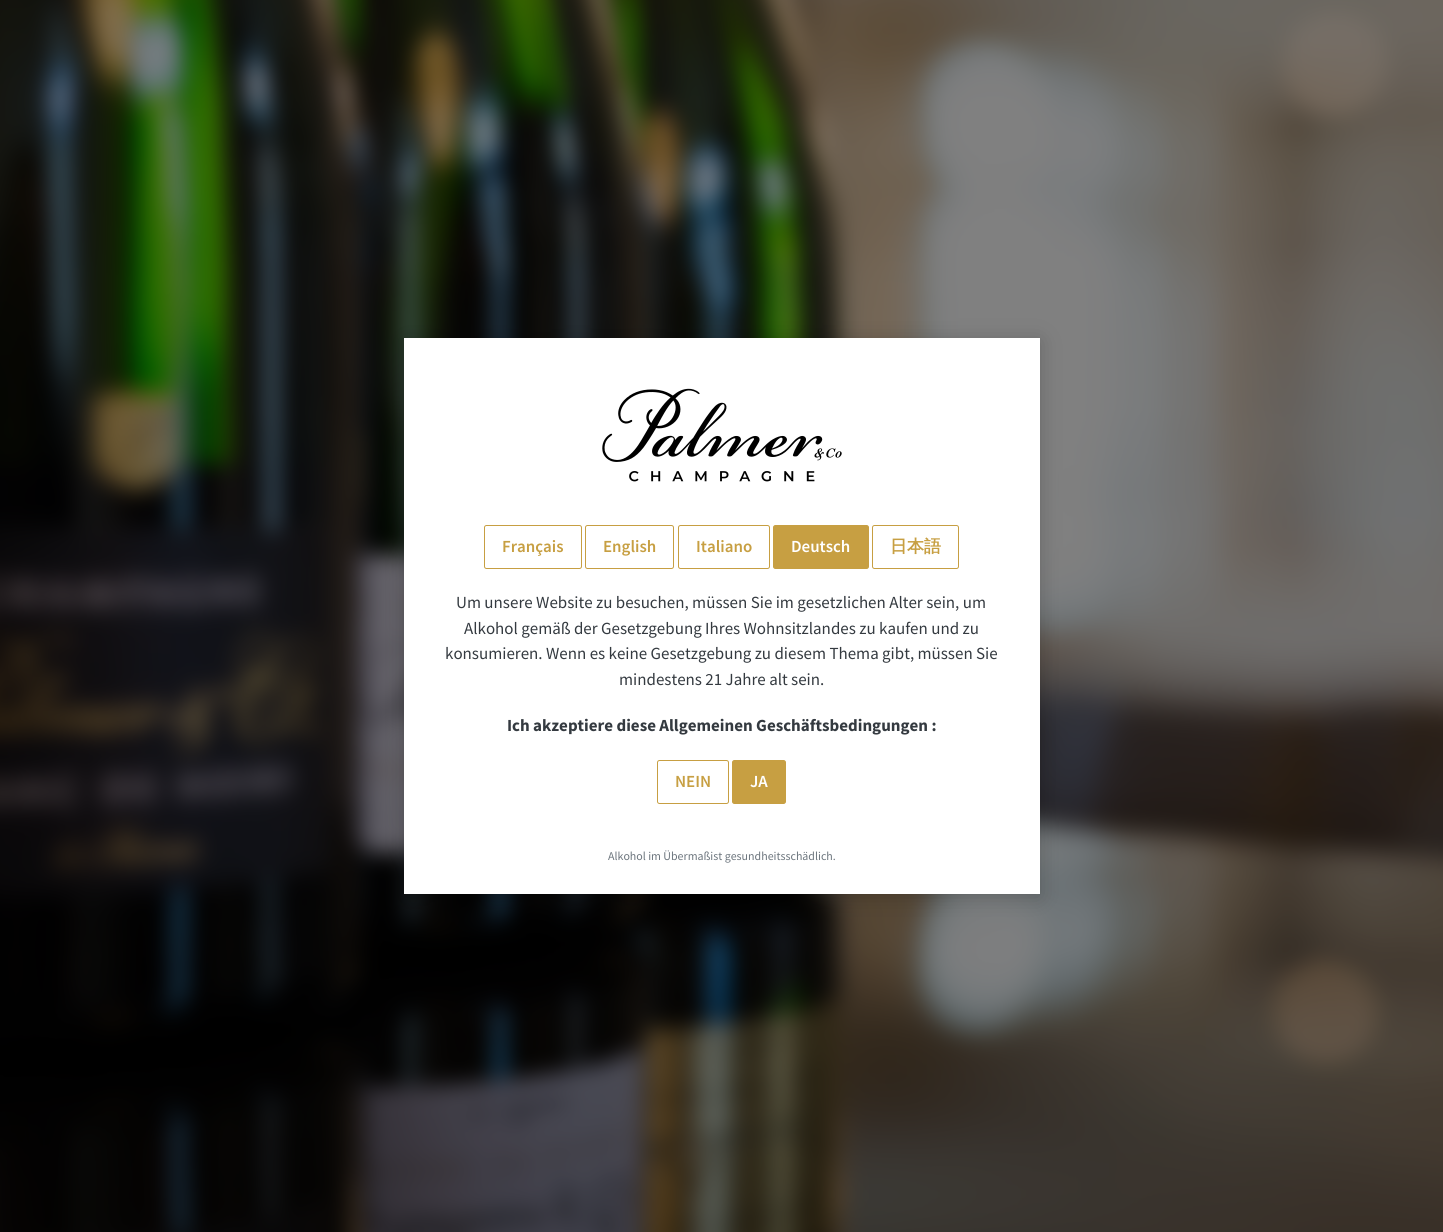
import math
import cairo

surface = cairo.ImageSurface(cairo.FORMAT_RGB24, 1443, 1232)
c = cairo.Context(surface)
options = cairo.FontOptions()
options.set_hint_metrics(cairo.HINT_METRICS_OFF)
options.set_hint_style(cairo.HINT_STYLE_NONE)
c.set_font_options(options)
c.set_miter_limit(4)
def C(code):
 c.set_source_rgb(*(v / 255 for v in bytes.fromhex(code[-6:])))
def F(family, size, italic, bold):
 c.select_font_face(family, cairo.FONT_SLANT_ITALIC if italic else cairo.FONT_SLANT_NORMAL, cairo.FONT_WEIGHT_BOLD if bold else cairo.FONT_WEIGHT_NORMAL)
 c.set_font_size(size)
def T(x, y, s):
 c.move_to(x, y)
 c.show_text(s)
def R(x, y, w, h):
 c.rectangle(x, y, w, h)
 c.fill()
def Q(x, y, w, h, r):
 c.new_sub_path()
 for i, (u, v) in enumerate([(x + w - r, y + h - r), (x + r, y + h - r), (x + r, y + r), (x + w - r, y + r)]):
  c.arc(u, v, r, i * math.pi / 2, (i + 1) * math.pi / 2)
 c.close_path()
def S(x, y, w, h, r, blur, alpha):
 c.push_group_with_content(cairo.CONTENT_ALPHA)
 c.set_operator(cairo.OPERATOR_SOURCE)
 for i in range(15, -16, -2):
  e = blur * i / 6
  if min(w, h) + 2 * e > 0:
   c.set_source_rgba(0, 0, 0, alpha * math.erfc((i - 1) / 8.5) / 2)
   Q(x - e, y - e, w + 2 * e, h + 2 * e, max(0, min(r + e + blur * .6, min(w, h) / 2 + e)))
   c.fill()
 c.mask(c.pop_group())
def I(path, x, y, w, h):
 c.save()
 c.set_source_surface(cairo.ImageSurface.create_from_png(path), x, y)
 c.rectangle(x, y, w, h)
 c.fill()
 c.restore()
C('000000')
c.paint()
I('1.png',0,0,1443,1232)
S(404,341,636,556,0,10.5,.2)
C('ffffff')
R(404,338,636,556)
I('2.png',602,388,240,94)
Q(484.5,525.5,97,43,2)
C('c79f42')
c.set_line_width(1)
c.stroke()
F('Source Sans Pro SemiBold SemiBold',16.95,0,0)
T(502,552,'Français')
Q(585.5,525.5,88,43,2)
c.stroke()
T(603,552,'English')
Q(678.5,525.5,91,43,2)
c.stroke()
T(696,552,'Italiano')
Q(773.5,525.5,95,43,2)
c.fill_preserve()
c.stroke()
C('ffffff')
T(791,552,'Deutsch')
Q(872.5,525.5,86,43,2)
C('c79f42')
c.stroke()
F('WenQuanYi Zen Hei',16.95,0,1)
T(890,552,'日本語')
F('Source Sans Pro',16.95,0,0)
C('343a40')
T(456,608,'Um unsere Website zu besuchen, müssen Sie im gesetzlichen Alter sein, um')
T(464,634,'Alkohol gemäß der Gesetzgebung Ihres Wohnsitzlandes zu kaufen und zu')
T(445,659,'konsumieren. Wenn es keine Gesetzgebung zu diesem Thema gibt, müssen Sie')
T(619,685,'mindestens 21 Jahre alt sein.')
F('Source Sans Pro',16.95,0,1)
T(507,731,'Ich akzeptiere diese Allgemeinen Geschäftsbedingungen :')
Q(657.5,760.5,71,43,2)
C('c79f42')
c.stroke()
F('Source Sans Pro SemiBold SemiBold',16.95,0,0)
T(675,787,'NEIN')
Q(732.5,760.5,53,43,2)
c.fill_preserve()
c.stroke()
C('ffffff')
T(750,787,'JA')
F('Source Sans Pro',11.9,0,0)
C('6c757d')
T(608,860,'Alkohol im Übermaßist gesundheitsschädlich.')
surface.write_to_png('o.png')
